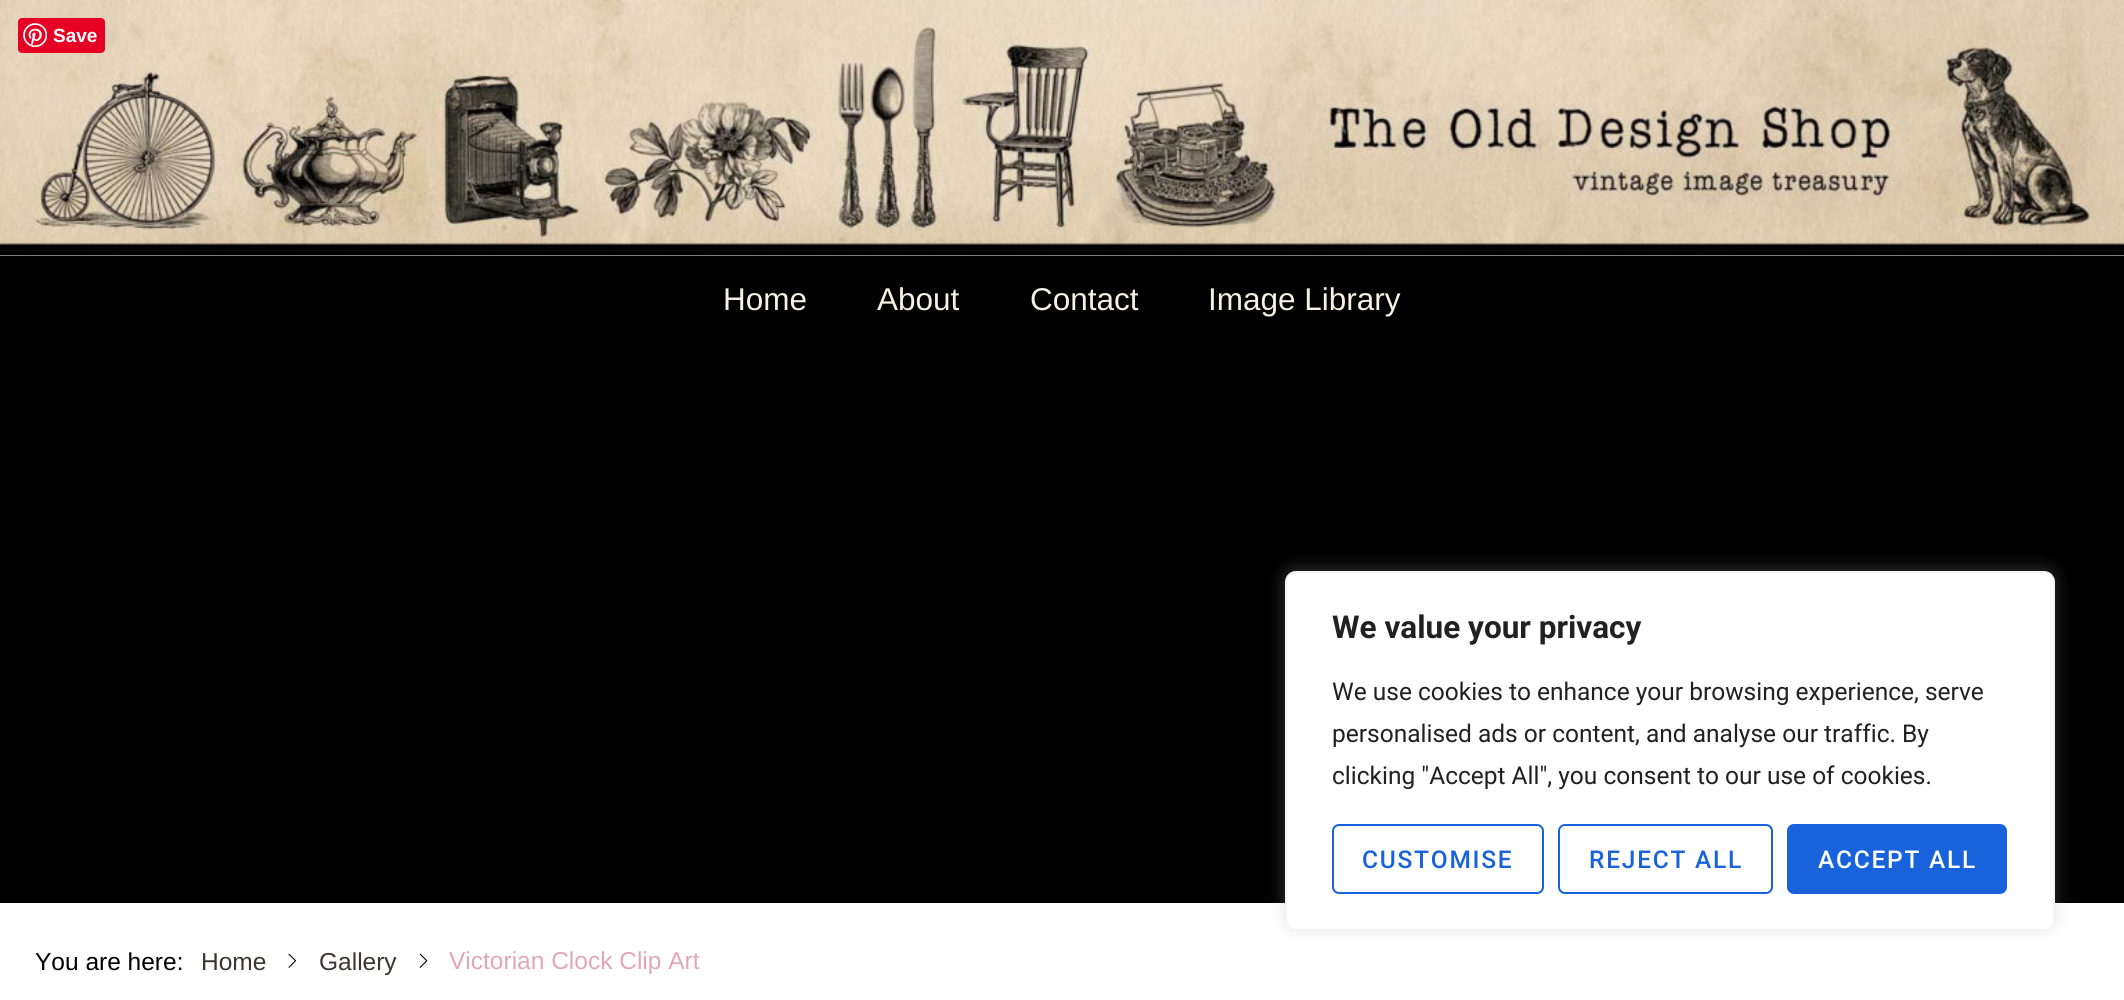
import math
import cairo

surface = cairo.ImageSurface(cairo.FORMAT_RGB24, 2124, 1000)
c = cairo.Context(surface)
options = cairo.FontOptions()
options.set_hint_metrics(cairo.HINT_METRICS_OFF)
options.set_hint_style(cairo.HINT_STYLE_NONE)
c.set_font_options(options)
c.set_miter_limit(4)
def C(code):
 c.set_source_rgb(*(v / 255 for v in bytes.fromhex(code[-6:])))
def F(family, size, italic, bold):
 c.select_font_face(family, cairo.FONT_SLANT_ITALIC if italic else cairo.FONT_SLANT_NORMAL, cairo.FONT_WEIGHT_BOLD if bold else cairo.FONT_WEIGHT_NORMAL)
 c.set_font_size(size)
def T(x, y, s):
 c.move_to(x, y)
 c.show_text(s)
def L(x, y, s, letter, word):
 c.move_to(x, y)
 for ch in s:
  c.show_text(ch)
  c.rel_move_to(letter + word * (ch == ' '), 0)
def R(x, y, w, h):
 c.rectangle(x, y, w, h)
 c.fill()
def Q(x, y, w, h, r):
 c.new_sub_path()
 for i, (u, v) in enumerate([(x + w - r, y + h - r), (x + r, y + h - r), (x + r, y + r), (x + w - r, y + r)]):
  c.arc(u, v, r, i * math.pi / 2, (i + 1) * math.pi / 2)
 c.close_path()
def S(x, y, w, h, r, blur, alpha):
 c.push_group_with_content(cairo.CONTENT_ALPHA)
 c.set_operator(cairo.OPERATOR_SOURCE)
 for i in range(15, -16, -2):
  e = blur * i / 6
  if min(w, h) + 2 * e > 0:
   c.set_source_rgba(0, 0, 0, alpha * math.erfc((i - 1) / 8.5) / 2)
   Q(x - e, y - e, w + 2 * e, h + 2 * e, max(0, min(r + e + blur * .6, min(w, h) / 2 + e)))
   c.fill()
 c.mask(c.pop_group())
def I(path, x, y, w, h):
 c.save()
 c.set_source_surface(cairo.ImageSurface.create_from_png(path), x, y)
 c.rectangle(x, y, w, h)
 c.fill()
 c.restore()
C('ffffff')
c.paint()
I('2.png',0,0,2124,256)
C('e60023')
Q(18,18,87,35,4)
c.fill()
I('1.png',23,23,24,24)
F('Liberation Sans',19,0,1)
C('ffffff')
T(53,42,'Save')
C('000000')
R(0,256,2124,647)
F('Liberation Sans',31.5,0,0)
C('f6f0e5')
T(723,310,'Home')
T(877,310,'About')
T(1030,310,'Contact')
T(1208,310,'Image Library')
F('Liberation Sans',24.5,0,0)
C('000000')
T(35,970,'You are here:')
C('3c3531')
T(201,970,'Home')
I('3.png',288,953,8,15)
T(319,970,'Gallery')
I('4.png',419,953,9,15)
C('e6a5b7')
T(449,969,'Victorian Clock Clip Art')
C('acabab')
S(1285,569,770,360,11,9,.3)
C('ffffff')
Q(1286,572,768,358,10)
c.fill_preserve()
C('f4f4f4')
c.stroke()
F('Roboto',31.5,0,1)
C('212121')
T(1332,638,'We value your privacy')
F('Roboto',24.5,0,0)
T(1332,700,'We use cookies to enhance your browsing experience, serve')
T(1332,742,'personalised ads or content, and analyse our traffic. By')
T(1332,784,'clicking "Accept All", you consent to our use of cookies.')
Q(1333,825,210,68,6)
C('1863dc')
c.stroke()
F('Roboto Medium',24.5,0,0)
L(1362,868,'CUSTOMISE',1.75,0)
Q(1559,825,213,68,6)
c.stroke()
L(1589,868,'REJECT ALL',1.75,0)
Q(1788,825,218,68,6)
c.fill_preserve()
c.stroke()
C('ffffff')
L(1818,868,'ACCEPT ALL',1.75,0)
surface.write_to_png('o.png')
